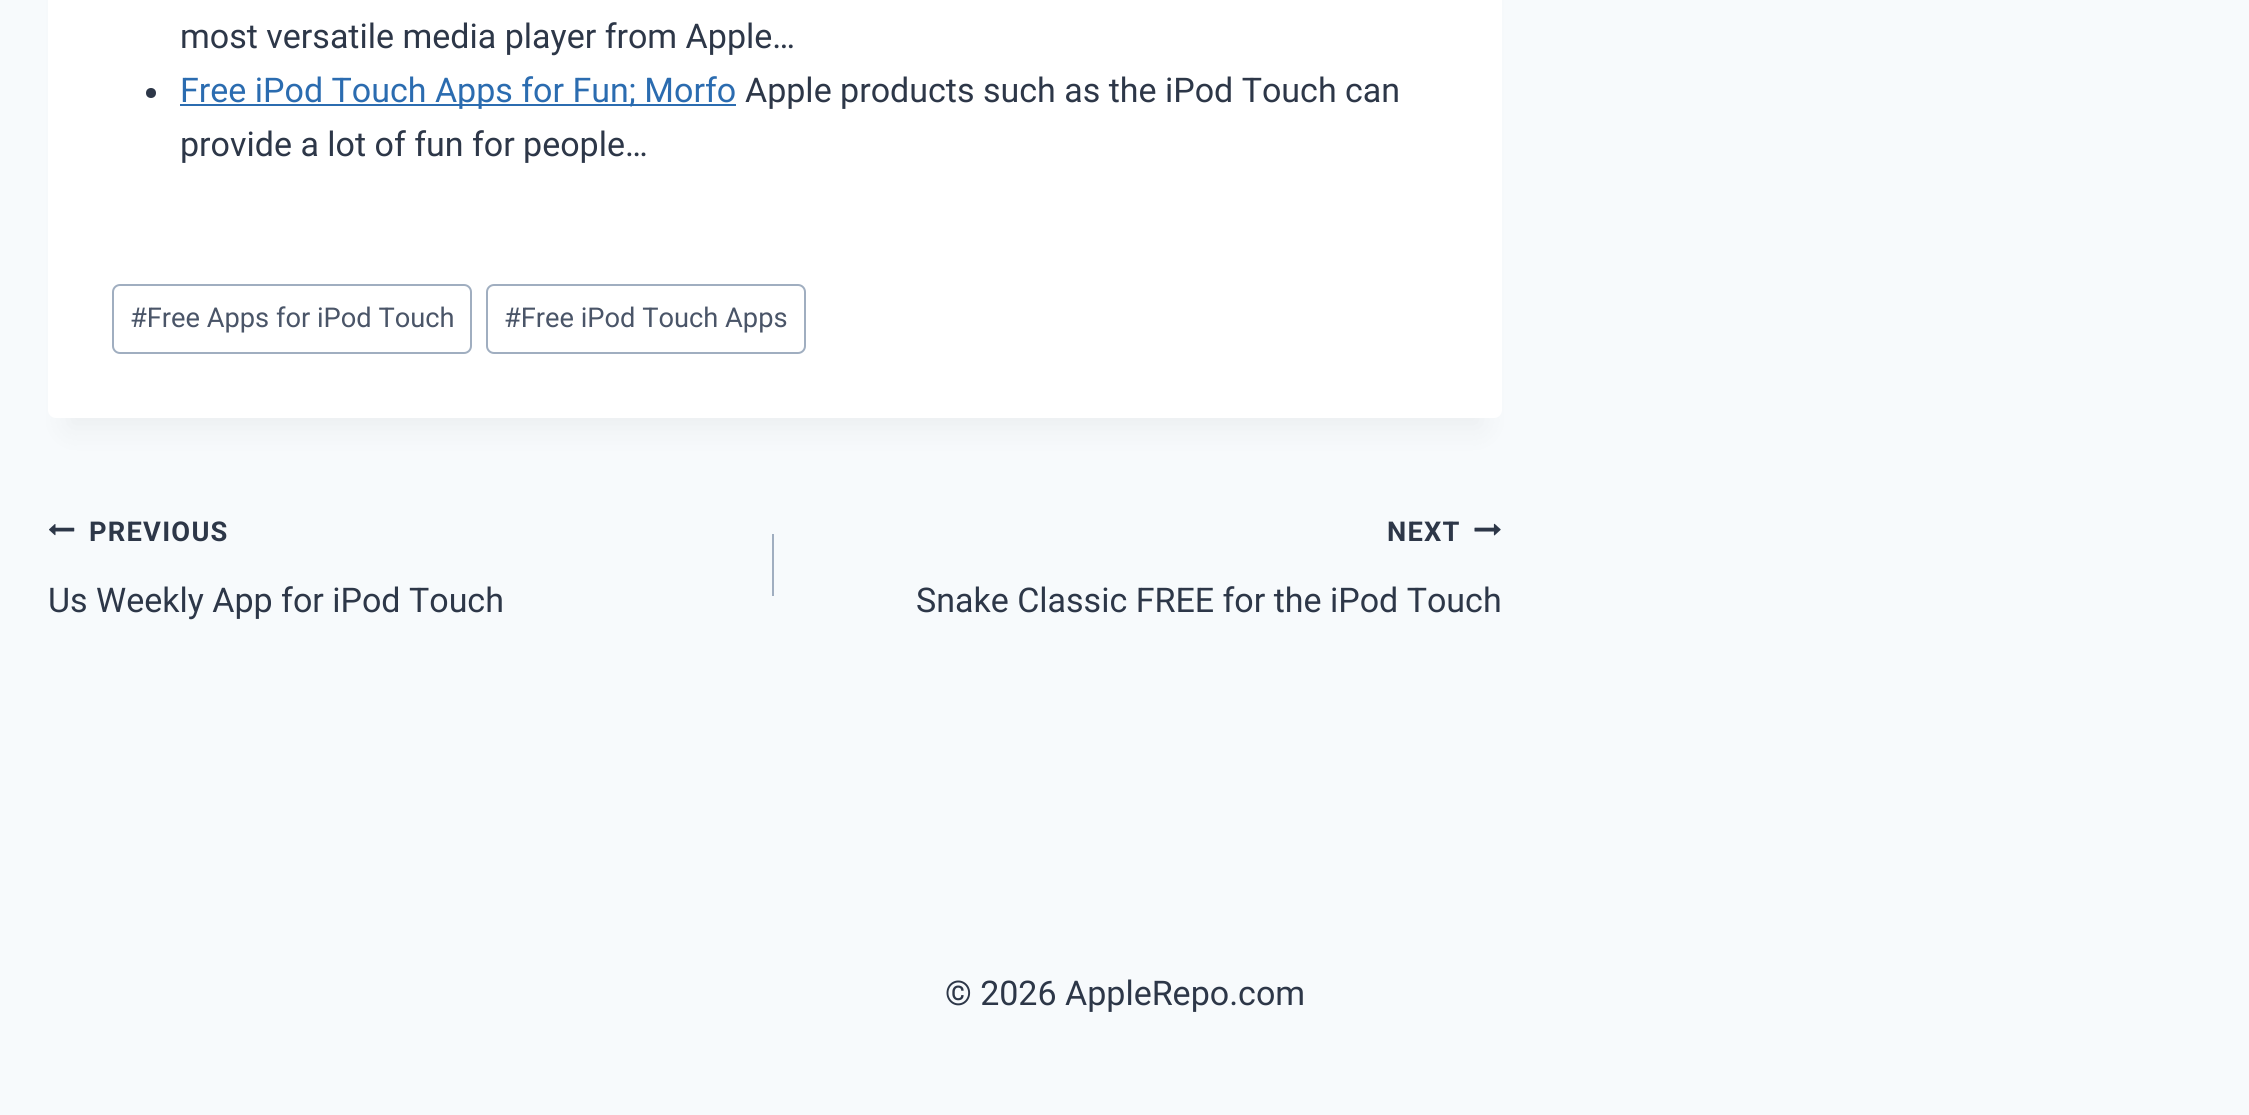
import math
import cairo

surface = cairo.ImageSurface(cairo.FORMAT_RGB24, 2249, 1115)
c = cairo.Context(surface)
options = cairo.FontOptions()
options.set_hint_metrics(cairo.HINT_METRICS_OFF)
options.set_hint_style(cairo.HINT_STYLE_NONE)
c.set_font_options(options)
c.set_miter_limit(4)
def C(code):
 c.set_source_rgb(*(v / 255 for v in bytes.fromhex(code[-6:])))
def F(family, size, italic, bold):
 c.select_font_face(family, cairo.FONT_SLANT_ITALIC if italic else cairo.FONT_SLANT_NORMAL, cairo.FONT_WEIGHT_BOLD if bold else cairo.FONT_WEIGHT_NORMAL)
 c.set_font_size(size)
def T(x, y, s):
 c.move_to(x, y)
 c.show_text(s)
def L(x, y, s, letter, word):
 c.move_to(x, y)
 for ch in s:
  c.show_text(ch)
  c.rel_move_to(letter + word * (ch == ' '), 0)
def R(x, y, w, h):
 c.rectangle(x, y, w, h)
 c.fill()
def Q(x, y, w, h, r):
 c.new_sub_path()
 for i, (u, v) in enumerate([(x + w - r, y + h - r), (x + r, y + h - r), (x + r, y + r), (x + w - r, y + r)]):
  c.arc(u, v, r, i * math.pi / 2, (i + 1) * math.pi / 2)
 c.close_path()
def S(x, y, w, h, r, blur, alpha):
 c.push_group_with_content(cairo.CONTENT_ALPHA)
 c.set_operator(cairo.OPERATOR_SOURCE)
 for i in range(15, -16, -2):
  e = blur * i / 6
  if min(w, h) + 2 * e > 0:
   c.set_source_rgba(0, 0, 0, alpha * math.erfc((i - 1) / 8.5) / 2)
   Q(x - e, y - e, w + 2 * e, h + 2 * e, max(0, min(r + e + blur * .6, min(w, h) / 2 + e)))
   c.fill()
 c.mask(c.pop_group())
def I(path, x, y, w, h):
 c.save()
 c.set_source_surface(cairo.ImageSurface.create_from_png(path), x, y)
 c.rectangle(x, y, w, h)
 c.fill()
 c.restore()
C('f7fafc')
c.paint()
C('000000')
S(68,-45,1414,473,0,15,.05)
C('ffffff')
Q(48,-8,1454,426,8)
c.fill()
F('Roboto',34,0,0)
C('2d3748')
T(180,48,'most versatile media player from Apple…')
c.new_path()
c.arc(151,93,5,0,2 * math.pi)
c.fill()
C('2b6cb0')
R(180,104,556,2)
T(180,102,'Free iPod Touch Apps for Fun; Morfo')
C('2d3748')
T(745,102,'Apple products such as the iPod Touch can')
T(180,156,'provide a lot of fun for people…')
Q(113,285,358,68,7)
C('a0aec0')
c.stroke()
F('Roboto',27.25,0,0)
C('4a5568')
T(130,327,'#Free Apps for iPod Touch')
Q(487,285,318,68,7)
C('a0aec0')
c.stroke()
C('4a5568')
T(504,327,'#Free iPod Touch Apps')
I('1.png',49,524,26,12)
F('Roboto',27.25,0,1)
C('2d3748')
L(89,541,'PREVIOUS',1.25,0)
F('Roboto',34,0,0)
T(48,612,'Us Weekly App for iPod Touch')
C('a0aec0')
R(772,534,2,62)
F('Roboto',27.25,0,1)
C('2d3748')
L(1387,541,'NEXT',1.25,0)
I('2.png',1474,523,27,13)
F('Roboto',34,0,0)
T(916,612,'Snake Classic FREE for the iPod Touch')
T(945,1005,'© 2026 AppleRepo.com')
surface.write_to_png('o.png')
